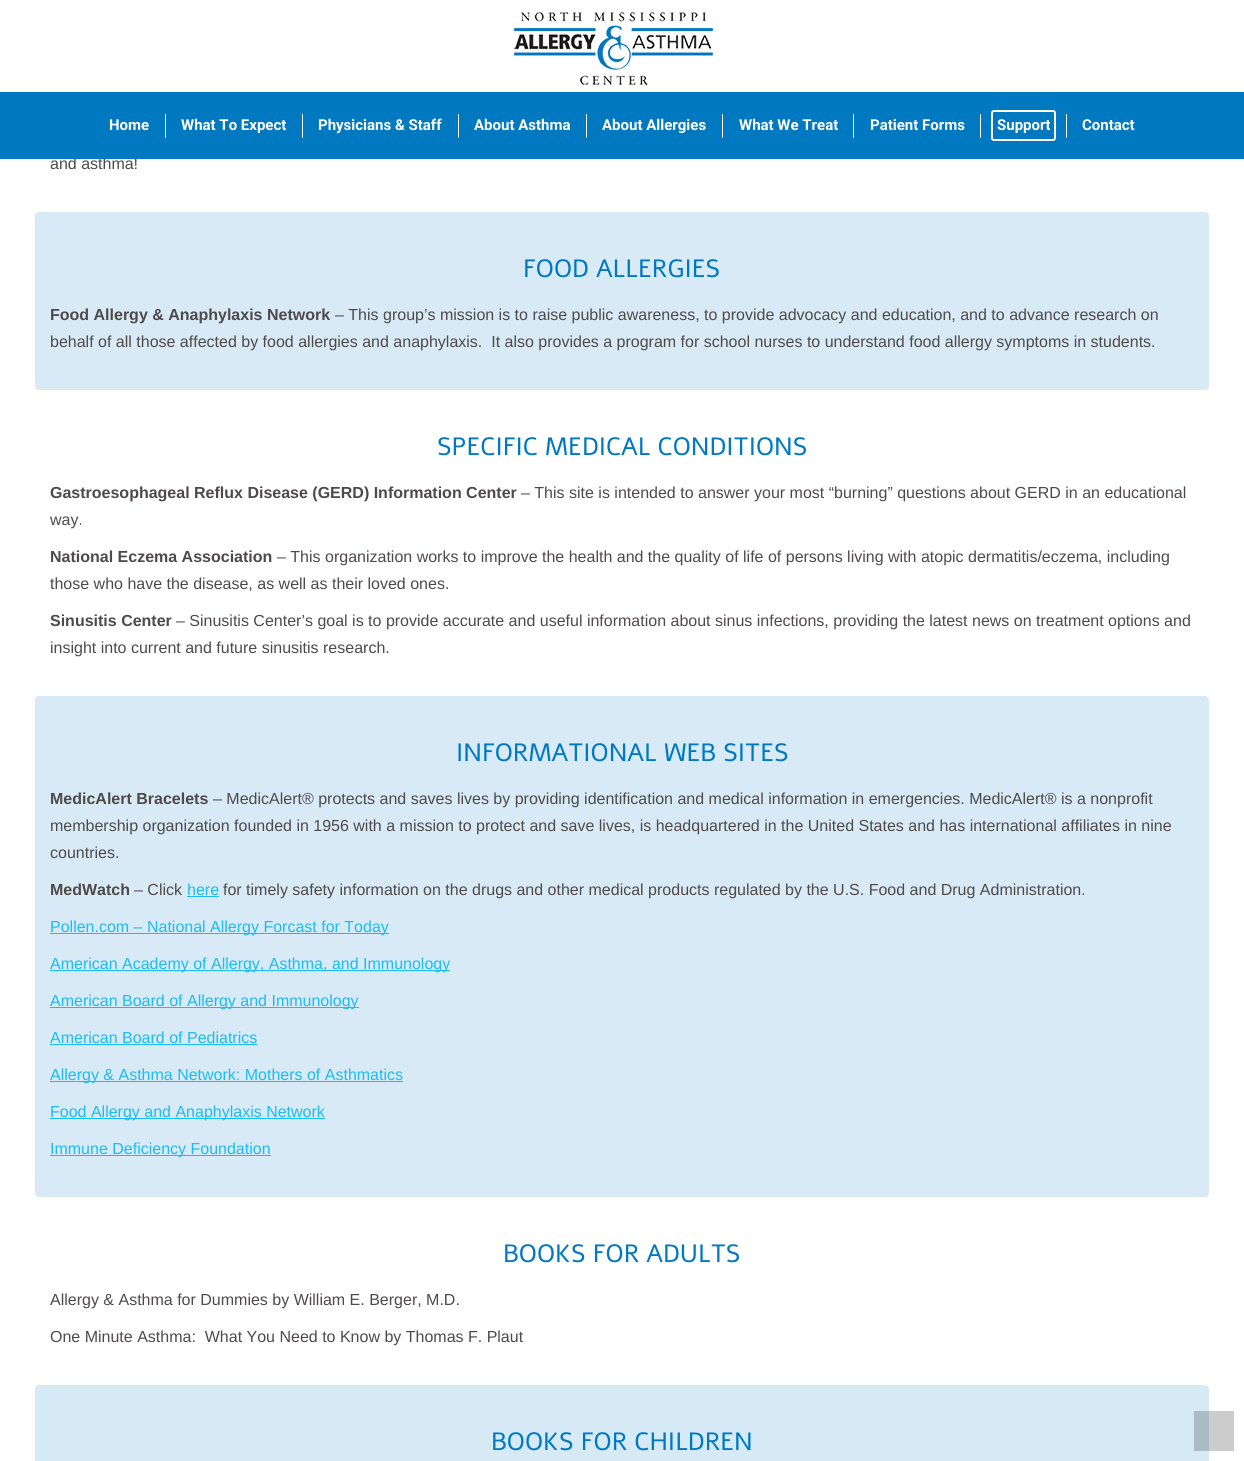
import math
import cairo

surface = cairo.ImageSurface(cairo.FORMAT_RGB24, 1244, 1461)
c = cairo.Context(surface)
options = cairo.FontOptions()
options.set_hint_metrics(cairo.HINT_METRICS_OFF)
options.set_hint_style(cairo.HINT_STYLE_NONE)
c.set_font_options(options)
c.set_miter_limit(4)
def C(code):
 c.set_source_rgb(*(v / 255 for v in bytes.fromhex(code[-6:])))
def F(family, size, italic, bold):
 c.select_font_face(family, cairo.FONT_SLANT_ITALIC if italic else cairo.FONT_SLANT_NORMAL, cairo.FONT_WEIGHT_BOLD if bold else cairo.FONT_WEIGHT_NORMAL)
 c.set_font_size(size)
def T(x, y, s):
 c.move_to(x, y)
 c.show_text(s)
def R(x, y, w, h):
 c.rectangle(x, y, w, h)
 c.fill()
def Q(x, y, w, h, r):
 c.new_sub_path()
 for i, (u, v) in enumerate([(x + w - r, y + h - r), (x + r, y + h - r), (x + r, y + r), (x + w - r, y + r)]):
  c.arc(u, v, r, i * math.pi / 2, (i + 1) * math.pi / 2)
 c.close_path()
def I(path, x, y, w, h):
 c.save()
 c.set_source_surface(cairo.ImageSurface.create_from_png(path), x, y)
 c.rectangle(x, y, w, h)
 c.fill()
 c.restore()
C('ffffff')
c.paint()
I('1.png',514,12,199,73)
F('Liberation Sans',16,0,0)
C('4f4a4a')
T(50,169,'and asthma!')
C('0079c1')
R(0,92,1244,67)
F('Roboto',15,0,1)
C('ffffff')
T(109,130,'Home')
R(165,114,1,24)
T(181,130,'What To Expect')
R(302,114,1,24)
T(318,130,'Physicians & Staff')
R(458,114,1,24)
T(474,130,'About Asthma')
R(586,114,1,24)
T(602,130,'About Allergies')
R(722,114,1,24)
T(739,130,'What We Treat')
R(853,114,1,24)
T(870,130,'Patient Forms')
R(980,114,1,24)
Q(992,111,63,29,2)
c.stroke()
T(997,130,'Support')
R(1066,114,1,24)
T(1082,130,'Contact')
C('d7eaf6')
Q(35,212,1174,178,4)
c.fill()
F('Alef',25,0,0)
C('0079c1')
T(523,277,'FOOD ALLERGIES')
F('Liberation Sans',16,0,1)
C('4f4a4a')
T(50,320,'Food Allergy & Anaphylaxis Network')
F('Liberation Sans',16,0,0)
T(335,320,'– This group’s mission is to raise public awareness, to provide advocacy and education, and to advance research on')
T(50,347,'behalf of all those affected by food allergies and anaphylaxis.  It also provides a program for school nurses to understand food allergy symptoms in students.')
F('Alef',25,0,0)
C('0079c1')
T(437,455,'SPECIFIC MEDICAL CONDITIONS')
F('Liberation Sans',16,0,1)
C('4f4a4a')
T(50,498,'Gastroesophageal Reflux Disease (GERD) Information Center')
F('Liberation Sans',16,0,0)
T(521,498,'– This site is intended to answer your most “burning” questions about GERD in an educational')
T(50,525,'way.')
F('Liberation Sans',16,0,1)
T(50,562,'National Eczema Association')
F('Liberation Sans',16,0,0)
T(277,562,'– This organization works to improve the health and the quality of life of persons living with atopic dermatitis/eczema, including')
T(50,589,'those who have the disease, as well as their loved ones.')
F('Liberation Sans',16,0,1)
T(50,626,'Sinusitis Center')
F('Liberation Sans',16,0,0)
T(176,626,'– Sinusitis Center’s goal is to provide accurate and useful information about sinus infections, providing the latest news on treatment options and')
T(50,653,'insight into current and future sinusitis research.')
C('d7eaf6')
Q(35,696,1174,501,4)
c.fill()
F('Alef',25,0,0)
C('0079c1')
T(456,761,'INFORMATIONAL WEB SITES')
F('Liberation Sans',16,0,1)
C('4f4a4a')
T(50,804,'MedicAlert Bracelets')
F('Liberation Sans',16,0,0)
T(213,804,'– MedicAlert® protects and saves lives by providing identification and medical information in emergencies. MedicAlert® is a nonprofit')
T(50,831,'membership organization founded in 1956 with a mission to protect and save lives, is headquartered in the United States and has international affiliates in nine')
T(50,858,'countries.')
F('Liberation Sans',16,0,1)
T(50,895,'MedWatch')
F('Liberation Sans',16,0,0)
T(134,895,'– Click')
C('1ebbf0')
T(187,895,'here')
R(187,896,32,1)
C('4f4a4a')
T(223,895,'for timely safety information on the drugs and other medical products regulated by the U.S. Food and Drug Administration.')
C('1ebbf0')
R(50,933,339,1)
T(50,932,'Pollen.com – National Allergy Forcast for Today')
R(50,970,400,1)
T(50,969,'American Academy of Allergy, Asthma, and Immunology')
R(50,1007,309,1)
T(50,1006,'American Board of Allergy and Immunology')
T(50,1043,'American Board of Pediatrics')
R(50,1044,207,1)
R(50,1081,353,1)
T(50,1080,'Allergy & Asthma Network: Mothers of Asthmatics')
R(50,1118,275,1)
T(50,1117,'Food Allergy and Anaphylaxis Network')
R(50,1155,221,1)
T(50,1154,'Immune Deficiency Foundation')
F('Alef',25,0,0)
C('0079c1')
T(503,1262,'BOOKS FOR ADULTS')
F('Liberation Sans',16,0,0)
C('4f4a4a')
T(50,1305,'Allergy & Asthma for Dummies by William E. Berger, M.D.')
T(50,1342,'One Minute Asthma:  What You Need to Know by Thomas F. Plaut')
C('d6eaf5')
Q(35,1385,1174,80,4)
c.fill()
F('Alef',25,0,0)
C('0079c1')
T(491,1450,'BOOKS FOR CHILDREN')
c.set_source_rgba(0,0,0,0.2)
R(1194,1411,40,40)
surface.write_to_png('o.png')
